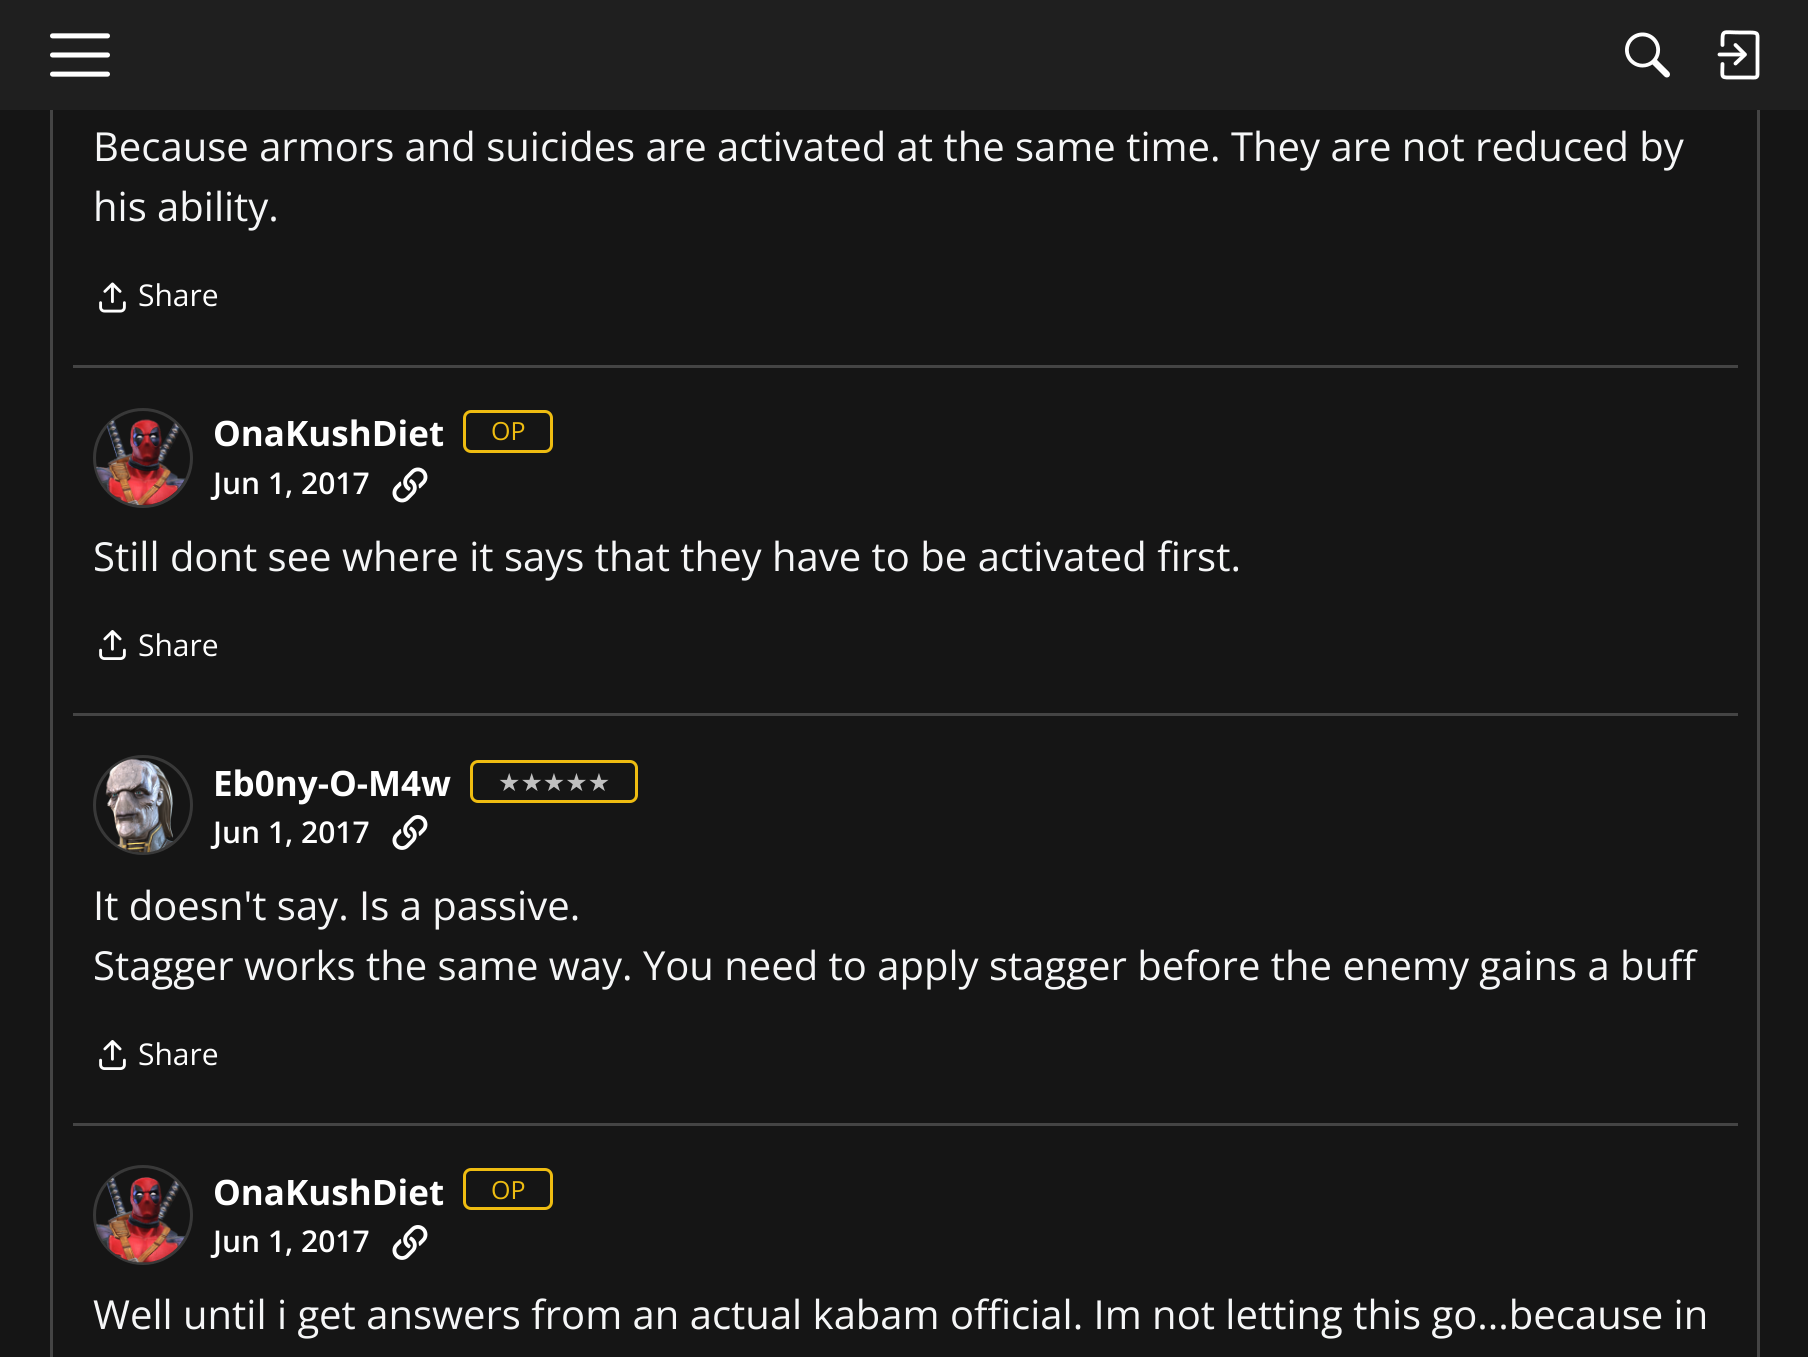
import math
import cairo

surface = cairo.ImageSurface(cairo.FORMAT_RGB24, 1808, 1357)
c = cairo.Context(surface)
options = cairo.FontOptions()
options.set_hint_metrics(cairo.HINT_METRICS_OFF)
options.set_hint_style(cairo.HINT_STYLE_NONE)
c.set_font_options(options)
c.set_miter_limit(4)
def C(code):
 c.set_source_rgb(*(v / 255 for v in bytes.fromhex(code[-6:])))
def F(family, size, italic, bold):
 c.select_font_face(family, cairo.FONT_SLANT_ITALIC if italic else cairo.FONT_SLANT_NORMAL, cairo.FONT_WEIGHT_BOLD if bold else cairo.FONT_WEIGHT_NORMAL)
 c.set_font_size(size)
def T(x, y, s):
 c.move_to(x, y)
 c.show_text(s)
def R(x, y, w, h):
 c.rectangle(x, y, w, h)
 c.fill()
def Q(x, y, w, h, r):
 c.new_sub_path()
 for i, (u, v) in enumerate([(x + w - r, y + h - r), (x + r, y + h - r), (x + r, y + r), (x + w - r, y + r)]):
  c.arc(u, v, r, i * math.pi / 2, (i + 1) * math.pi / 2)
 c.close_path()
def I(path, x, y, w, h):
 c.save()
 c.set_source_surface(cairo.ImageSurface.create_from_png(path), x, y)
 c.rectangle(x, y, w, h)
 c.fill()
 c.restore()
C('151515')
c.paint()
c.rectangle(51.5,-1.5,1707,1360)
C('444444')
c.set_line_width(3)
c.stroke()
C('1f1f1f')
R(0,0,1808,110)
I('1.png',50,33,60,44)
I('2.png',1625,32,45,46)
c.new_path()
c.move_to(1735.5,63.5)
c.line_to(1745,54.5)
c.line_to(1735.5,45)
C('ffffff')
c.set_line_width(3.8)
c.set_line_cap(cairo.LINE_CAP_ROUND)
c.set_line_join(cairo.LINE_JOIN_ROUND)
c.stroke()
c.new_path()
c.move_to(1744,54.5)
c.line_to(1719.5,54.5)
c.set_line_join(cairo.LINE_JOIN_MITER)
c.stroke()
c.new_path()
c.move_to(1722.5,45)
c.curve_to(1722.5,29,1721.5,32.5,1740,32.5)
c.line_to(1749.5,32.5)
c.curve_to(1759,32.5,1757.5,33.5,1757.5,43)
c.line_to(1757.5,74.5)
c.curve_to(1757.5,78.5,1753.5,77.5,1750.5,77.5)
c.line_to(1735.5,77.5)
c.curve_to(1719.5,77.5,1722.5,79,1722.5,64)
c.set_line_join(cairo.LINE_JOIN_ROUND)
c.stroke()
F('Open Sans',40,0,0)
C('f5f6f7')
T(93,161,'Because armors and suicides are activated at the same time. They are not reduced by')
T(93,221,'his ability.')
I('3.png',99,282,27,31)
F('Open Sans',30,0,0)
C('ffffff')
T(138,306,'Share')
C('444444')
R(73,365,1665,3)
c.new_path()
c.arc(143,458,48.5,0,2 * math.pi)
C('383838')
c.set_line_width(3)
c.set_line_cap(cairo.LINE_CAP_BUTT)
c.set_line_join(cairo.LINE_JOIN_MITER)
c.stroke()
I('4.png',96,419,89,86)
F('Open Sans',35,0,1)
C('ffffff')
T(213,446,'OnaKushDiet')
Q(464.5,411.5,87,40,6.5)
C('eebc11')
c.stroke()
F('Open Sans',25,0,0)
T(491,440,'OP')
F('Open Sans SemiBold',30,0,0)
C('ffffff')
T(213,494,'Jun 1, 2017')
I('5.png',392,467,36,36)
F('Open Sans',40,0,0)
C('f5f6f7')
T(93,571,'Still dont see where it says that they have to be activated first.')
I('6.png',99,630,27,30)
F('Open Sans',30,0,0)
C('ffffff')
T(138,656,'Share')
C('444444')
R(73,713,1665,3)
c.new_path()
c.arc(143,805,48.5,0,2 * math.pi)
C('383838')
c.stroke()
I('7.png',105,759,69,94)
F('Open Sans',35,0,1)
C('ffffff')
T(213,796,'Eb0ny-O-M4w')
Q(471.5,761.5,165,40,6.5)
C('eebc11')
c.stroke()
F('DejaVu Sans',25,0,0)
C('c0c0c0')
T(498,791,'★★★★★')
F('Open Sans SemiBold',30,0,0)
C('ffffff')
T(213,843,'Jun 1, 2017')
I('8.png',392,815,36,35)
F('Open Sans',40,0,0)
C('f5f6f7')
T(93,920,'It doesn\'t say. Is a passive.')
T(93,980,'Stagger works the same way. You need to apply stagger before the enemy gains a buff')
I('6.png',99,1040,27,30)
F('Open Sans',30,0,0)
C('ffffff')
T(138,1065,'Share')
C('444444')
R(73,1123,1665,3)
c.new_path()
c.arc(143,1215,48.5,0,2 * math.pi)
C('383838')
c.stroke()
I('9.png',96,1177,89,86)
F('Open Sans',35,0,1)
C('ffffff')
T(213,1205,'OnaKushDiet')
Q(464.5,1169.5,87,39,6.5)
C('eebc11')
c.stroke()
F('Open Sans',25,0,0)
T(491,1199,'OP')
F('Open Sans SemiBold',30,0,0)
C('ffffff')
T(213,1252,'Jun 1, 2017')
I('8.png',392,1225,36,35)
F('Open Sans',40,0,0)
C('f5f6f7')
T(93,1329,'Well until i get answers from an actual kabam official. Im not letting this go...because in')
surface.write_to_png('o.png')
